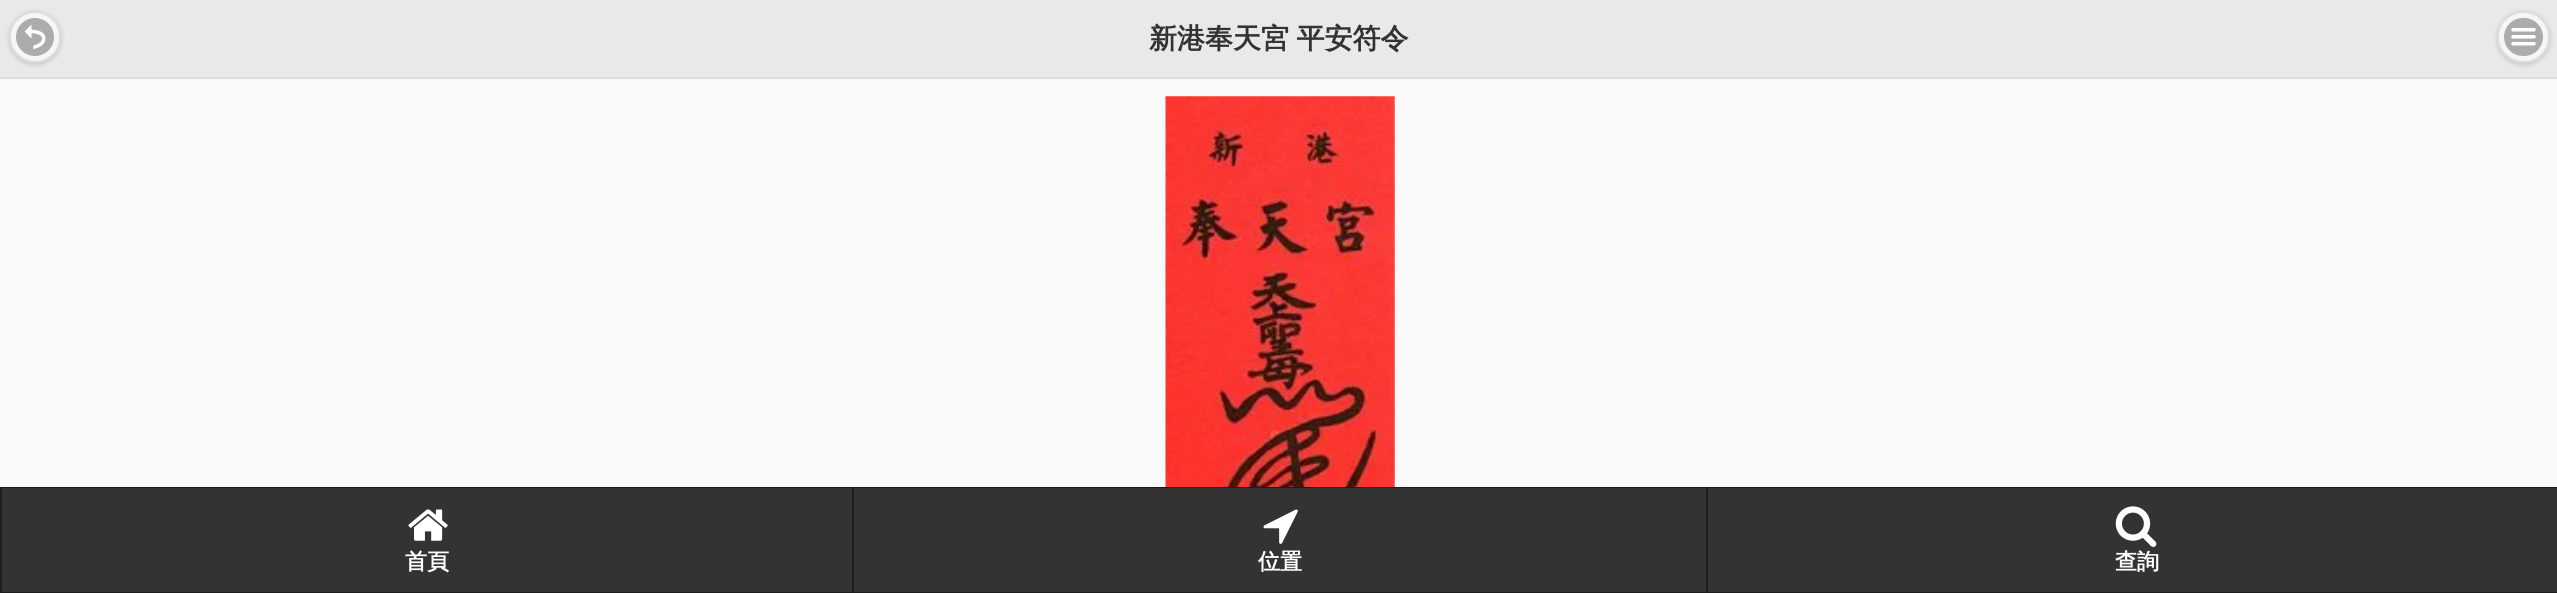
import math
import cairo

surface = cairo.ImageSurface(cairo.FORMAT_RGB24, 2557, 593)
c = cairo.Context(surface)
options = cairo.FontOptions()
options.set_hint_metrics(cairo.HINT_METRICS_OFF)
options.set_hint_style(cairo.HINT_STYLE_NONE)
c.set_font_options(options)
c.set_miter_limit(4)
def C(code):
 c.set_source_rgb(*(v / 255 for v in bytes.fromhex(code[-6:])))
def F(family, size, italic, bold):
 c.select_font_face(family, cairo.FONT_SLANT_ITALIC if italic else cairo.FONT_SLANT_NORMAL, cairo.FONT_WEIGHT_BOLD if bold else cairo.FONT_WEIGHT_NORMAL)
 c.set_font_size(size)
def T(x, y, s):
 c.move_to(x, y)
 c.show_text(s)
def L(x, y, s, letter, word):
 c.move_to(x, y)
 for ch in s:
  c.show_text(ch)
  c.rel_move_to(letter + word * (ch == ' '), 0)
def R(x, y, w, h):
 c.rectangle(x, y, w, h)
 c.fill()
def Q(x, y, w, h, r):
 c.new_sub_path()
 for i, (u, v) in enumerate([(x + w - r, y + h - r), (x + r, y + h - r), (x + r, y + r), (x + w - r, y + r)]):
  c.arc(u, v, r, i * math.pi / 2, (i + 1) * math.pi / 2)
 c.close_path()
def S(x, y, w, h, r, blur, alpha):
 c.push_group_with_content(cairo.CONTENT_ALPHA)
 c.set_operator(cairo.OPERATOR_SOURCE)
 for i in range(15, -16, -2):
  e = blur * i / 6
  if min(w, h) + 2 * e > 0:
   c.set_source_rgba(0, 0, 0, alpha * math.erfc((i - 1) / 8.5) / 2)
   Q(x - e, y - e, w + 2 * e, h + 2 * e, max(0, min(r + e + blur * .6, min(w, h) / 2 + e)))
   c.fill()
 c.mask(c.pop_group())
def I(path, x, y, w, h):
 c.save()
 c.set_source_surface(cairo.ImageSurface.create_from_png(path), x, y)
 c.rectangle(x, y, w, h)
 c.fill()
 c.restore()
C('f9f9f9')
c.paint()
C('e9e9e9')
R(0,0,2557,77)
C('dddddd')
R(0,77,2557,2)
C('000000')
S(9,12,52,53,26,2.5,.15)
C('f6f6f6')
c.arc(35,37,25,0,2 * math.pi)
c.fill_preserve()
C('dddddd')
c.stroke()
C('acacac')
c.arc(35,37,19,0,2 * math.pi)
c.fill()
I('1.png',24,25,22,24)
F('WenQuanYi Zen Hei',28,0,1)
C('333333')
L(1149,48,'新港奉天宮 平安符令',0,-1)
C('000000')
S(2497,12,53,53,26.5,2.5,.15)
C('f6f6f6')
Q(2498,12,51,50,25)
c.fill_preserve()
C('dddddd')
c.stroke()
C('acacac')
Q(2504,18,39,38,19)
c.fill()
I('2.png',2511,28,25,18)
I('3.png',1165,96,230,391)
C('1d1d1d')
R(0,592,2557,1)
C('1b1b1b')
R(0,487,2557,1)
C('333333')
R(2,488,850,104)
C('1f1f1f')
R(0,488,2,104)
I('4.png',408,509,40,32)
F('WenQuanYi Zen Hei',22,0,1)
C('ffffff')
T(405,569,'首頁')
C('333333')
R(854,488,852,104)
C('1f1f1f')
R(852,488,2,104)
I('5.png',1263,509,35,35)
C('ffffff')
T(1258,569,'位置')
C('333333')
R(1708,488,849,104)
C('1f1f1f')
R(1706,488,2,104)
I('6.png',2115,506,42,41)
C('ffffff')
T(2115,569,'查詢')
surface.write_to_png('o.png')
